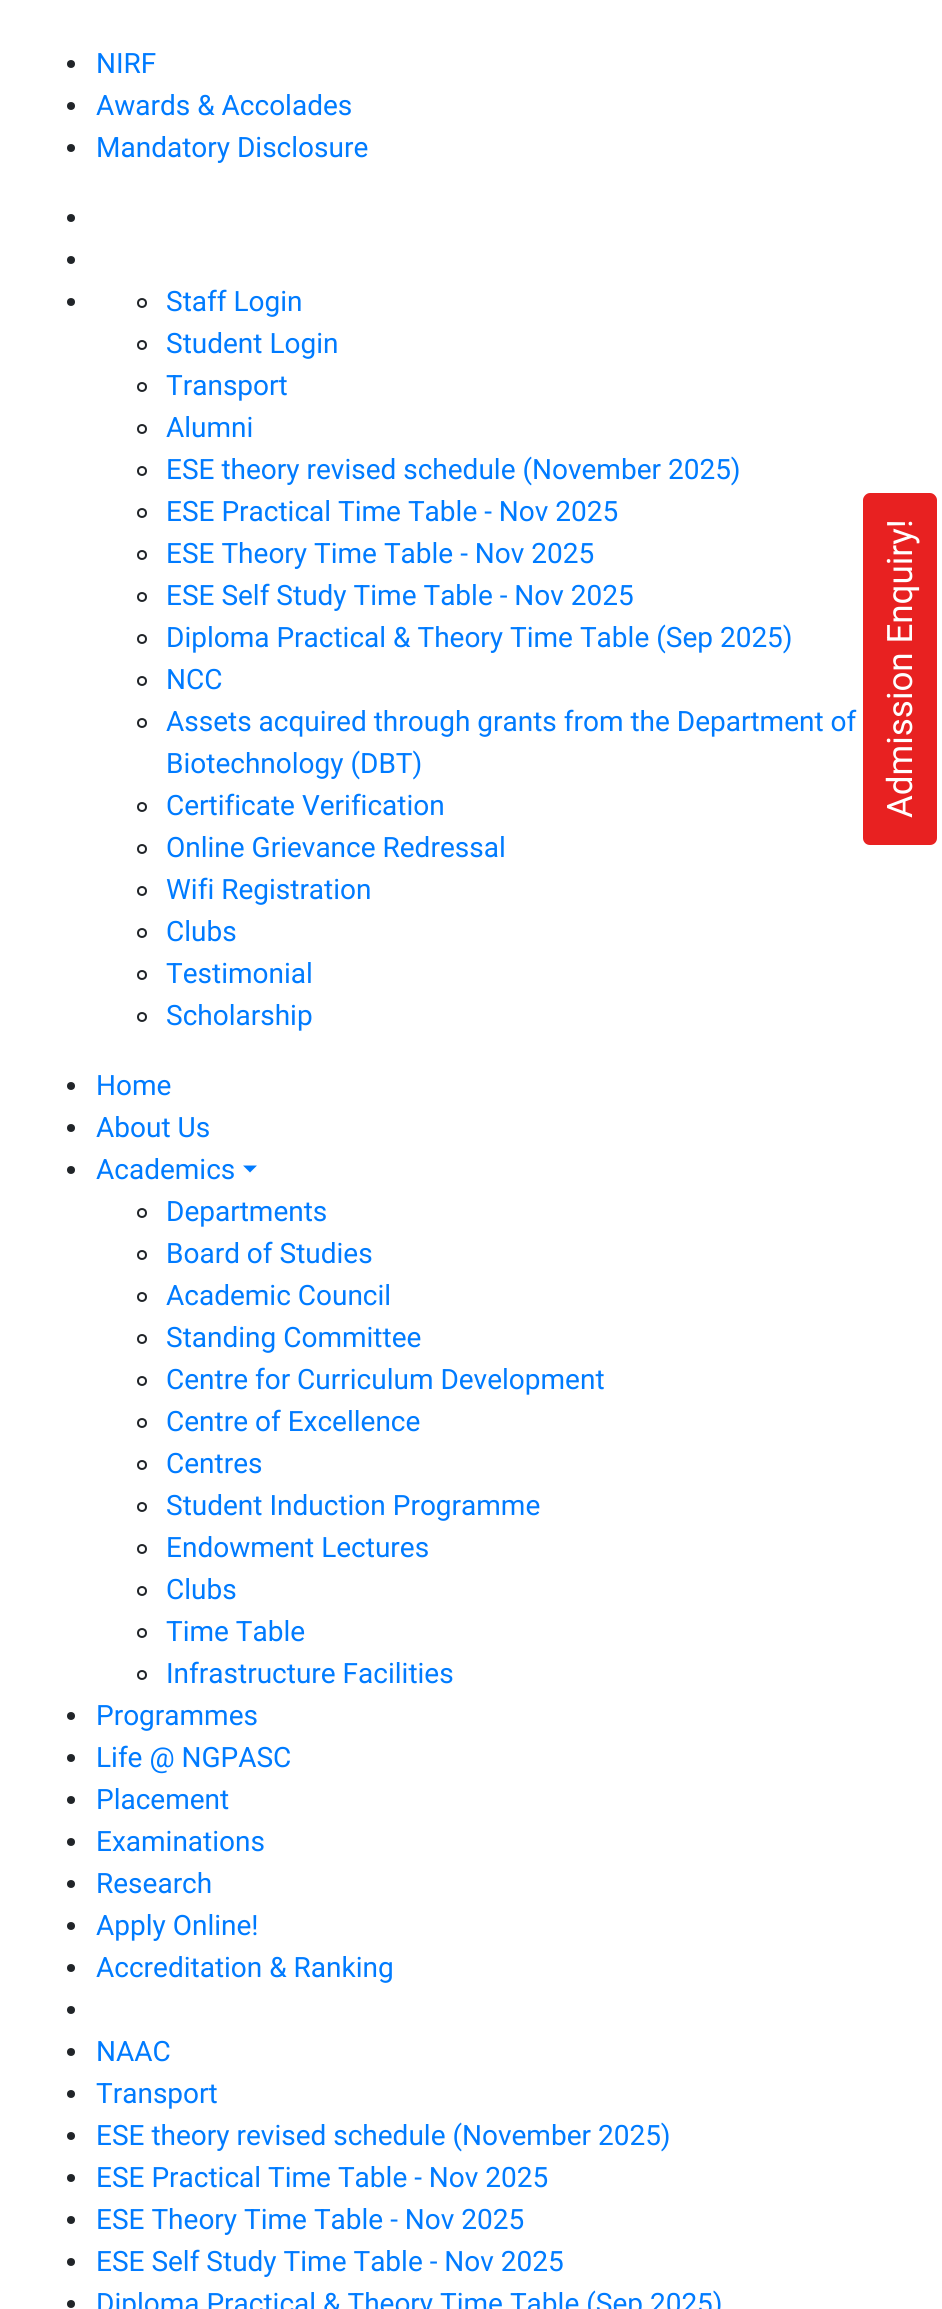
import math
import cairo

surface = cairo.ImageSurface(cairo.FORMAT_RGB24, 942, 2309)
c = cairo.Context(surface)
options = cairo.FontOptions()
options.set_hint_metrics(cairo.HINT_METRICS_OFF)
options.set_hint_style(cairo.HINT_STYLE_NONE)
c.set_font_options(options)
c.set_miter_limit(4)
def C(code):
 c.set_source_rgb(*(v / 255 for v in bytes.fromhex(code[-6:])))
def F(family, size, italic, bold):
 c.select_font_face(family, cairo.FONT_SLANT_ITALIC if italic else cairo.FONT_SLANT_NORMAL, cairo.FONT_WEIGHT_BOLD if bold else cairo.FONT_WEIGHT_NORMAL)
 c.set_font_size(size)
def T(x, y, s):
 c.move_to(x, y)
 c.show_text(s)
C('ffffff')
c.paint()
C('212529')
c.arc(71,64,4,0,2 * math.pi)
c.fill()
F('Roboto',28,0,0)
C('007bff')
T(96,73,'NIRF')
C('212529')
c.new_path()
c.arc(71,106,4,0,2 * math.pi)
c.fill()
C('007bff')
T(96,115,'Awards & Accolades')
C('212529')
c.new_path()
c.arc(71,148,4,0,2 * math.pi)
c.fill()
C('007bff')
T(96,157,'Mandatory Disclosure')
C('212529')
c.new_path()
c.arc(71,218,4,0,2 * math.pi)
c.fill()
c.arc(71,260,4,0,2 * math.pi)
c.fill()
c.arc(71,302,4,0,2 * math.pi)
c.fill()
c.arc(142,303,4,0,2 * math.pi)
c.stroke()
C('007bff')
T(166,311,'Staff Login')
c.new_path()
c.arc(142,345,4,0,2 * math.pi)
C('212529')
c.stroke()
C('007bff')
T(166,353,'Student Login')
c.new_path()
c.arc(142,387,4,0,2 * math.pi)
C('212529')
c.stroke()
C('007bff')
T(166,395,'Transport')
c.new_path()
c.arc(142,429,4,0,2 * math.pi)
C('212529')
c.stroke()
C('007bff')
T(166,437,'Alumni')
c.new_path()
c.arc(142,471,4,0,2 * math.pi)
C('212529')
c.stroke()
C('007bff')
T(166,479,'ESE theory revised schedule (November 2025)')
c.new_path()
c.arc(142,513,4,0,2 * math.pi)
C('212529')
c.stroke()
C('007bff')
T(166,521,'ESE Practical Time Table - Nov 2025')
c.new_path()
c.arc(142,555,4,0,2 * math.pi)
C('212529')
c.stroke()
C('007bff')
T(166,563,'ESE Theory Time Table - Nov 2025')
c.new_path()
c.arc(142,597,4,0,2 * math.pi)
C('212529')
c.stroke()
C('007bff')
T(166,605,'ESE Self Study Time Table - Nov 2025')
c.new_path()
c.arc(142,639,4,0,2 * math.pi)
C('212529')
c.stroke()
C('007bff')
T(166,647,'Diploma Practical & Theory Time Table (Sep 2025)')
c.new_path()
c.arc(142,681,4,0,2 * math.pi)
C('212529')
c.stroke()
C('007bff')
T(166,689,'NCC')
c.new_path()
c.arc(142,723,4,0,2 * math.pi)
C('212529')
c.stroke()
C('007bff')
T(166,731,'Assets acquired through grants from the Department of')
T(166,773,'Biotechnology (DBT)')
c.new_path()
c.arc(142,807,4,0,2 * math.pi)
C('212529')
c.stroke()
C('007bff')
T(166,815,'Certificate Verification')
c.new_path()
c.arc(142,849,4,0,2 * math.pi)
C('212529')
c.stroke()
C('007bff')
T(166,857,'Online Grievance Redressal')
c.new_path()
c.arc(142,891,4,0,2 * math.pi)
C('212529')
c.stroke()
C('007bff')
T(166,899,'Wifi Registration')
c.new_path()
c.arc(142,933,4,0,2 * math.pi)
C('212529')
c.stroke()
C('007bff')
T(166,941,'Clubs')
c.new_path()
c.arc(142,975,4,0,2 * math.pi)
C('212529')
c.stroke()
C('007bff')
T(166,983,'Testimonial')
c.new_path()
c.arc(142,1017,4,0,2 * math.pi)
C('212529')
c.stroke()
C('007bff')
T(166,1025,'Scholarship')
C('212529')
c.new_path()
c.arc(71,1086,4,0,2 * math.pi)
c.fill()
C('007bff')
T(96,1095,'Home')
C('212529')
c.new_path()
c.arc(71,1128,4,0,2 * math.pi)
c.fill()
C('007bff')
T(96,1137,'About Us')
C('212529')
c.new_path()
c.arc(71,1170,4,0,2 * math.pi)
c.fill()
C('007bff')
T(96,1179,'Academics')
c.new_path()
c.move_to(243,1165.5)
c.line_to(257,1165.5)
c.line_to(250,1172.5)
c.close_path()
c.fill()
c.arc(142,1213,4,0,2 * math.pi)
C('212529')
c.stroke()
C('007bff')
T(166,1221,'Departments')
c.new_path()
c.arc(142,1255,4,0,2 * math.pi)
C('212529')
c.stroke()
C('007bff')
T(166,1263,'Board of Studies')
c.new_path()
c.arc(142,1297,4,0,2 * math.pi)
C('212529')
c.stroke()
C('007bff')
T(166,1305,'Academic Council')
c.new_path()
c.arc(142,1339,4,0,2 * math.pi)
C('212529')
c.stroke()
C('007bff')
T(166,1347,'Standing Committee')
c.new_path()
c.arc(142,1381,4,0,2 * math.pi)
C('212529')
c.stroke()
C('007bff')
T(166,1389,'Centre for Curriculum Development')
c.new_path()
c.arc(142,1423,4,0,2 * math.pi)
C('212529')
c.stroke()
C('007bff')
T(166,1431,'Centre of Excellence')
c.new_path()
c.arc(142,1465,4,0,2 * math.pi)
C('212529')
c.stroke()
C('007bff')
T(166,1473,'Centres')
c.new_path()
c.arc(142,1507,4,0,2 * math.pi)
C('212529')
c.stroke()
C('007bff')
T(166,1515,'Student Induction Programme')
c.new_path()
c.arc(142,1549,4,0,2 * math.pi)
C('212529')
c.stroke()
C('007bff')
T(166,1557,'Endowment Lectures')
c.new_path()
c.arc(142,1591,4,0,2 * math.pi)
C('212529')
c.stroke()
C('007bff')
T(166,1599,'Clubs')
c.new_path()
c.arc(142,1633,4,0,2 * math.pi)
C('212529')
c.stroke()
C('007bff')
T(166,1641,'Time Table')
c.new_path()
c.arc(142,1675,4,0,2 * math.pi)
C('212529')
c.stroke()
C('007bff')
T(166,1683,'Infrastructure Facilities')
C('212529')
c.new_path()
c.arc(71,1716,4,0,2 * math.pi)
c.fill()
C('007bff')
T(96,1725,'Programmes')
C('212529')
c.new_path()
c.arc(71,1758,4,0,2 * math.pi)
c.fill()
C('007bff')
T(96,1767,'Life @ NGPASC')
C('212529')
c.new_path()
c.arc(71,1800,4,0,2 * math.pi)
c.fill()
C('007bff')
T(96,1809,'Placement')
C('212529')
c.new_path()
c.arc(71,1842,4,0,2 * math.pi)
c.fill()
C('007bff')
T(96,1851,'Examinations')
C('212529')
c.new_path()
c.arc(71,1884,4,0,2 * math.pi)
c.fill()
C('007bff')
T(96,1893,'Research')
C('212529')
c.new_path()
c.arc(71,1926,4,0,2 * math.pi)
c.fill()
C('007bff')
T(96,1935,'Apply Online!')
C('212529')
c.new_path()
c.arc(71,1968,4,0,2 * math.pi)
c.fill()
C('007bff')
T(96,1977,'Accreditation & Ranking')
C('212529')
c.new_path()
c.arc(71,2010,4,0,2 * math.pi)
c.fill()
c.arc(71,2052,4,0,2 * math.pi)
c.fill()
C('007bff')
T(96,2061,'NAAC')
C('212529')
c.new_path()
c.arc(71,2094,4,0,2 * math.pi)
c.fill()
C('007bff')
T(96,2103,'Transport')
C('212529')
c.new_path()
c.arc(71,2136,4,0,2 * math.pi)
c.fill()
C('007bff')
T(96,2145,'ESE theory revised schedule (November 2025)')
C('212529')
c.new_path()
c.arc(71,2178,4,0,2 * math.pi)
c.fill()
C('007bff')
T(96,2187,'ESE Practical Time Table - Nov 2025')
C('212529')
c.new_path()
c.arc(71,2220,4,0,2 * math.pi)
c.fill()
C('007bff')
T(96,2229,'ESE Theory Time Table - Nov 2025')
C('212529')
c.new_path()
c.arc(71,2262,4,0,2 * math.pi)
c.fill()
C('007bff')
T(96,2271,'ESE Self Study Time Table - Nov 2025')
C('212529')
c.new_path()
c.arc(71,2304,4,0,2 * math.pi)
c.fill()
C('007bff')
T(96,2313,'Diploma Practical & Theory Time Table (Sep 2025)')
C('e82121')
c.new_path()
c.move_to(863,838)
c.line_to(863,500)
c.curve_to(863,497,866,493,870,493)
c.line_to(930,493)
c.curve_to(934,493,937,497,937,500)
c.line_to(937,838)
c.curve_to(937,842,934,845,930,845)
c.line_to(870,845)
c.curve_to(866,845,863,842,863,838)
c.close_path()
c.fill()
F('Roboto',35,0,0)
C('ffffff')
c.save()
c.translate(912,818)
c.rotate(-90 * math.pi / 180)
T(0,0,'Admission Enquiry!')
c.restore()
surface.write_to_png('o.png')
